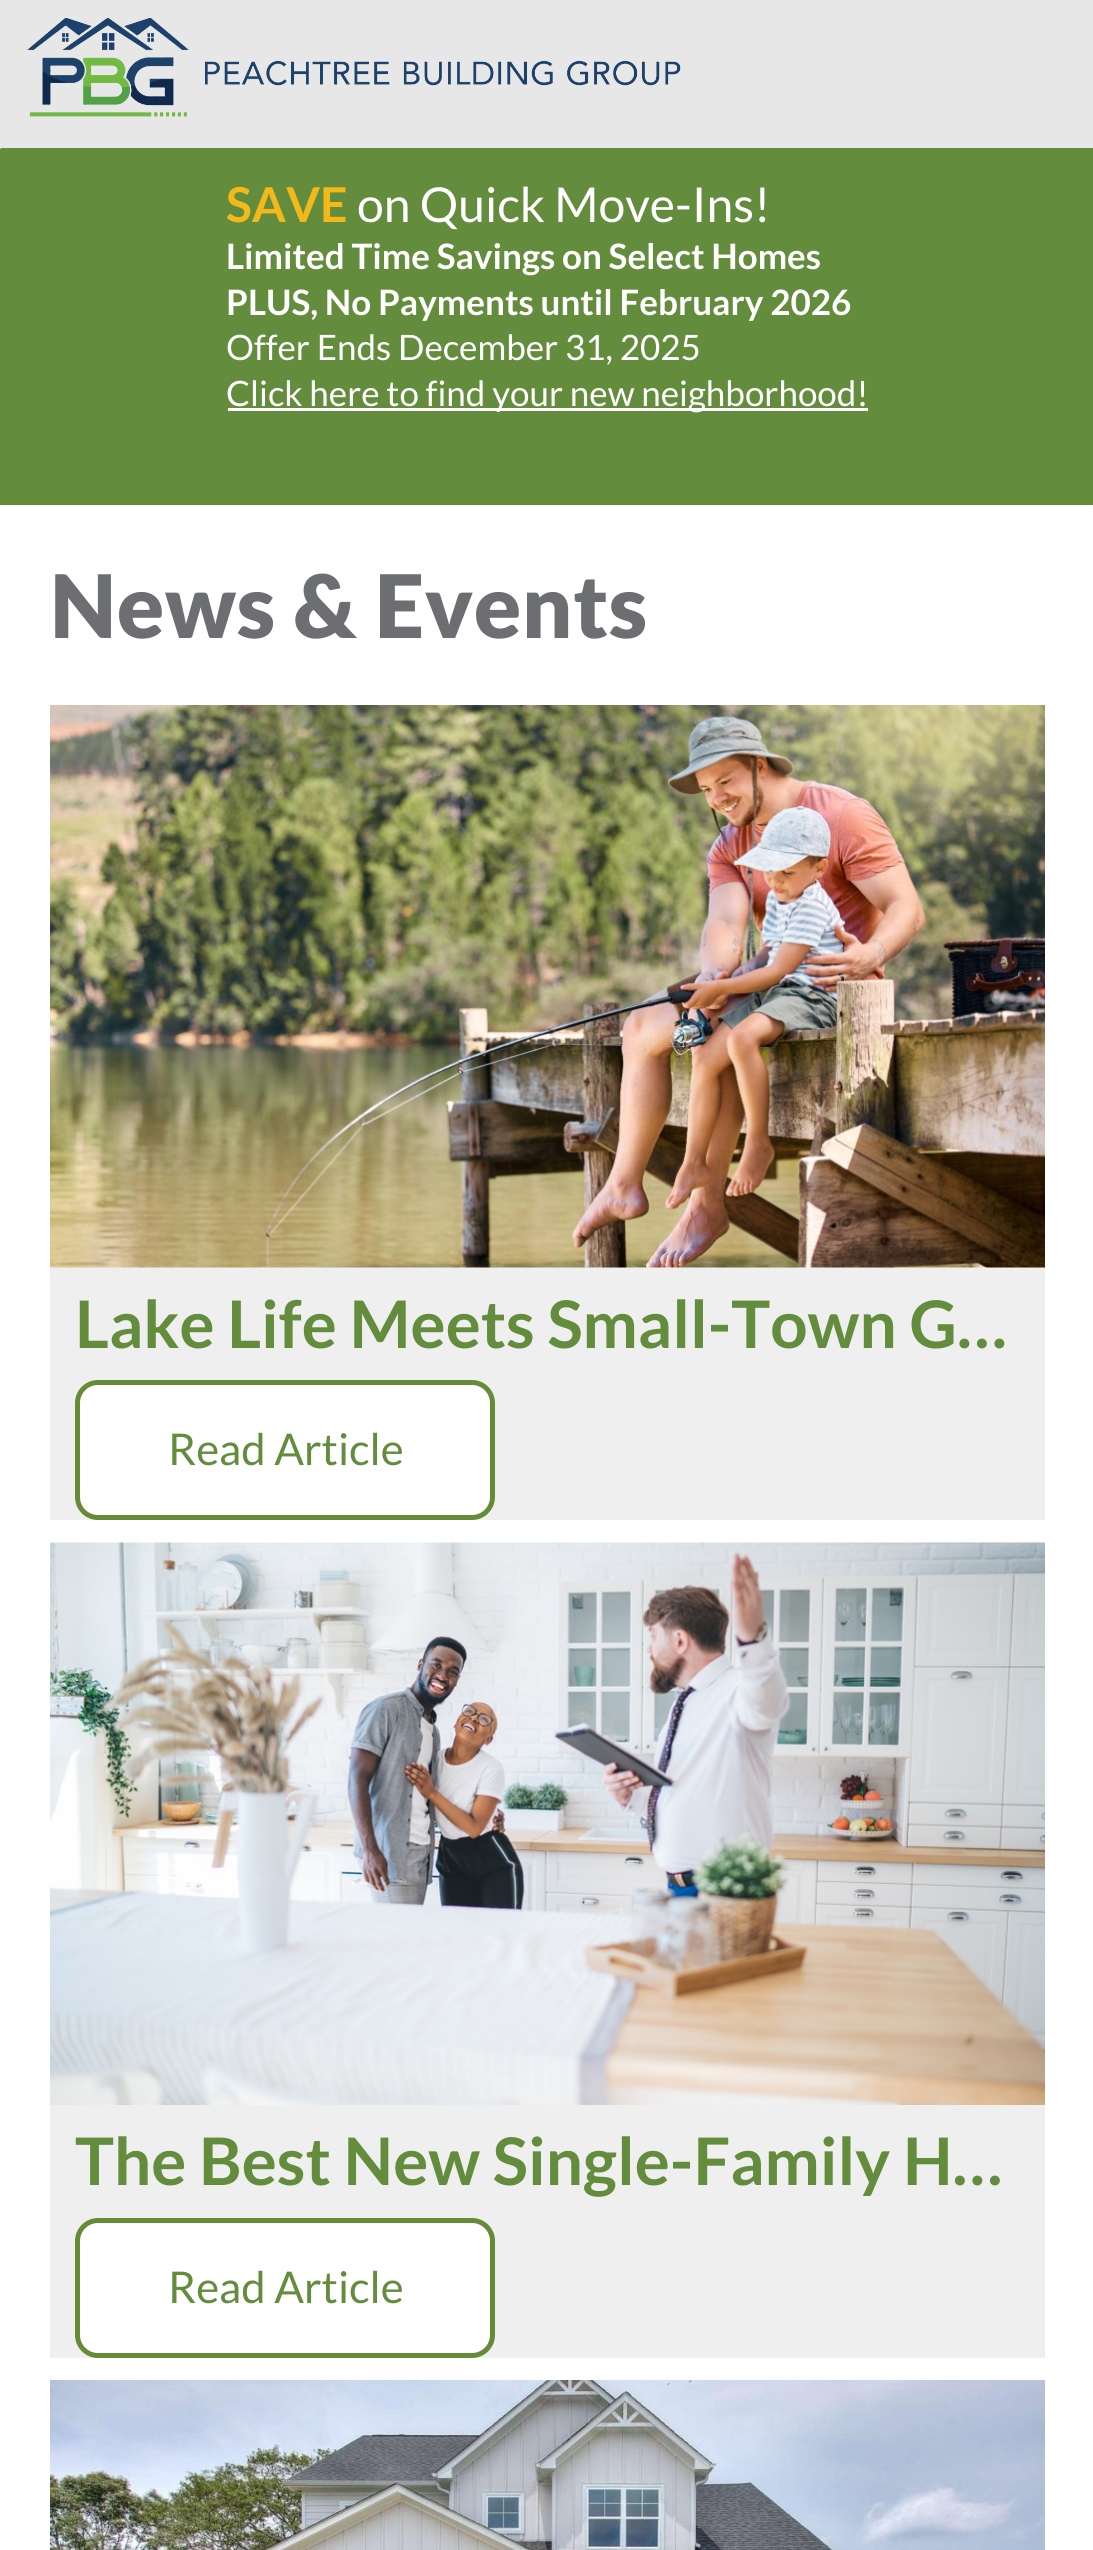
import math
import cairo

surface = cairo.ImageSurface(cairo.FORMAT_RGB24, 1093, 2550)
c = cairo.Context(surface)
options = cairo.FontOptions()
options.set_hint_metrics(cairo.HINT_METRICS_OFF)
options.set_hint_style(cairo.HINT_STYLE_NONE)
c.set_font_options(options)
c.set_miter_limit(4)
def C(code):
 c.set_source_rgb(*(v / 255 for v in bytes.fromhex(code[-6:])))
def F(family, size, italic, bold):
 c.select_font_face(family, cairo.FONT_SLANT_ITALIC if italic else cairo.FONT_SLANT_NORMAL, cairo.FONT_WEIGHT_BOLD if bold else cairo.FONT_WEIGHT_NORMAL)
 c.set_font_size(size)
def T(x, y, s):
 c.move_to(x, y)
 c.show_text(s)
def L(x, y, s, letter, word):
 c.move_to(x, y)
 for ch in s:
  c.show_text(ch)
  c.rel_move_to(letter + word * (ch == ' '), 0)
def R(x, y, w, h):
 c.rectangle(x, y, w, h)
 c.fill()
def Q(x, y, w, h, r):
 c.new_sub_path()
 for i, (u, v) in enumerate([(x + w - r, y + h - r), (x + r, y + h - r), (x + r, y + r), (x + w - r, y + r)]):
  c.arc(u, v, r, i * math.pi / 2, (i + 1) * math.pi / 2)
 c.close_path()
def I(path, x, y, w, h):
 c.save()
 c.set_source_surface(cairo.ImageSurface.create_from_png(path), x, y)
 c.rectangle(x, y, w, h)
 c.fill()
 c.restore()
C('ffffff')
c.paint()
C('e7e7e7')
R(0,0,1093,148)
C('638c3d')
Q(0,148,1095,3,1.5)
c.fill()
R(0,150,1093,25)
I('1.png',27,18,654,99)
R(0,175,1093,330)
F('Lato',48.1,0,1)
C('f3b91b')
T(226,222,'SAVE')
F('Lato',48.1,0,0)
C('ffffff')
T(357,222,'on Quick Move-Ins!')
F('Lato',35,0,1)
T(226,269,'Limited Time Savings on Select Homes')
T(226,315,'PLUS, No Payments until February 2026')
F('Lato',35,0,0)
T(226,360,'Offer Ends December 31, 2025')
R(228,408,640,3)
T(226,406,'Click here to find your new neighborhood!')
F('Lato Black',87.5,0,0)
C('6d6e71')
L(50,638,'News & Events',.6,0)
C('efefef')
R(50,1267,995,253)
I('2.png',50,705,995,563)
F('Lato',65.6,0,1)
C('638c3d')
T(75,1348,'Lake Life Meets Small-Town G…')
C('ffffff')
Q(77.5,1382.5,415,135,20.5)
c.fill_preserve()
C('658b36')
c.set_line_width(5)
c.stroke()
F('Lato',43.75,0,0)
C('638c3d')
T(168,1465,'Read Article')
C('efefef')
R(50,2105,995,253)
I('3.png',50,1542,995,563)
F('Lato',65.6,0,1)
C('638c3d')
T(75,2185,'The Best New Single-Family H…')
C('ffffff')
Q(77.5,2220.5,415,135,20.5)
c.fill_preserve()
C('658b36')
c.stroke()
F('Lato',43.75,0,0)
C('638c3d')
T(168,2303,'Read Article')
I('4.png',50,2380,995,170)
surface.write_to_png('o.png')
